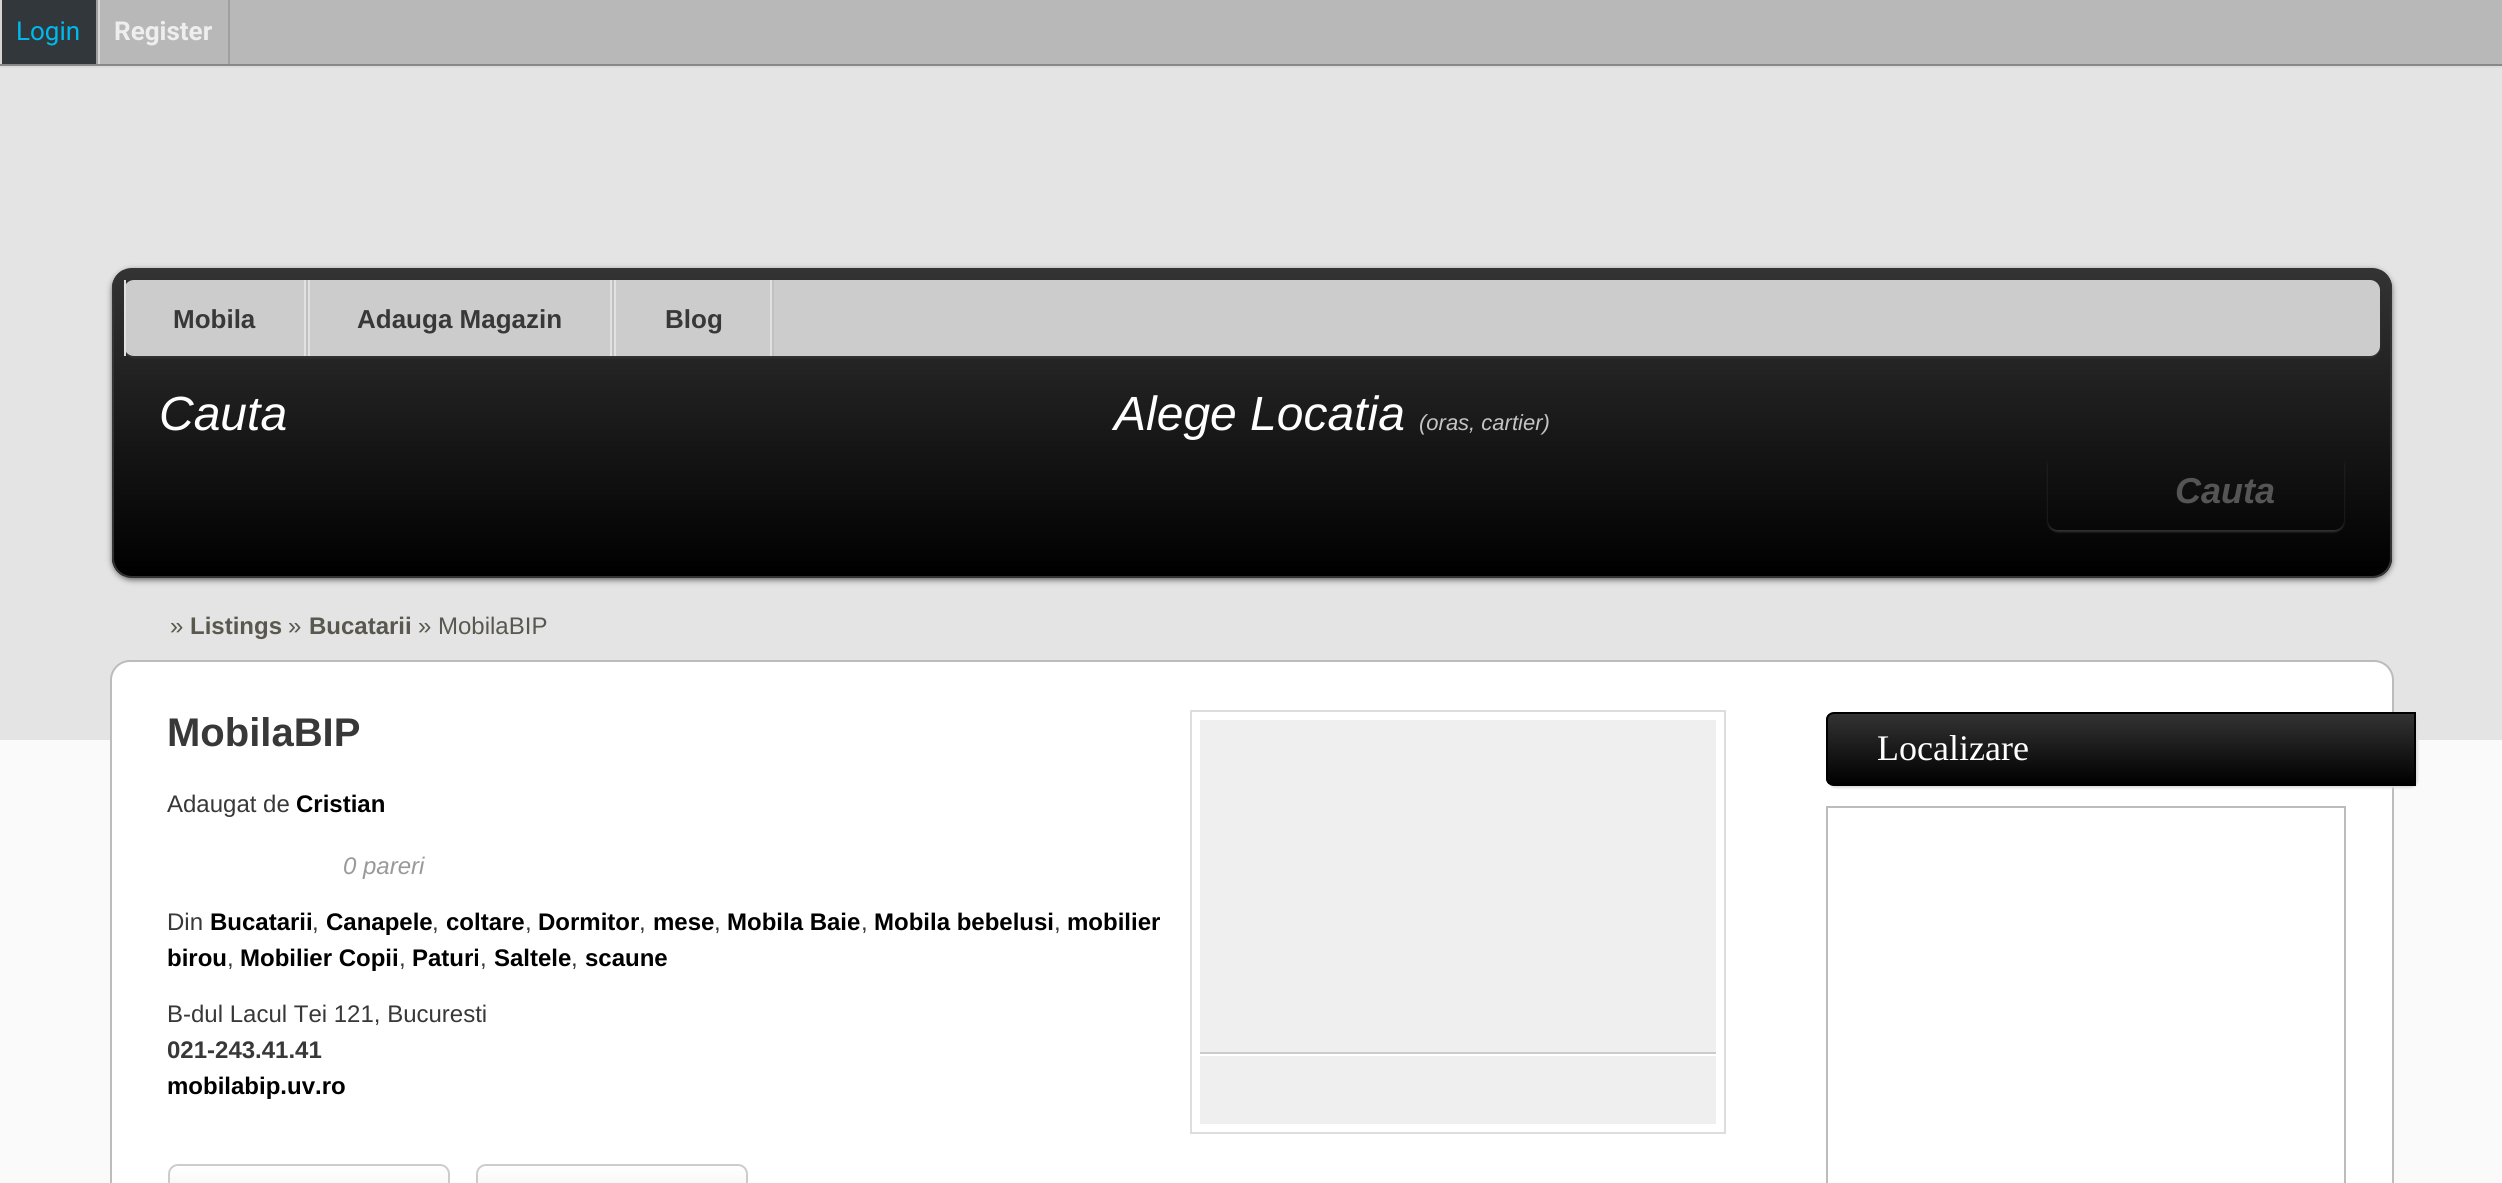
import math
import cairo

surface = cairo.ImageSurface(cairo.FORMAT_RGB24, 2502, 1183)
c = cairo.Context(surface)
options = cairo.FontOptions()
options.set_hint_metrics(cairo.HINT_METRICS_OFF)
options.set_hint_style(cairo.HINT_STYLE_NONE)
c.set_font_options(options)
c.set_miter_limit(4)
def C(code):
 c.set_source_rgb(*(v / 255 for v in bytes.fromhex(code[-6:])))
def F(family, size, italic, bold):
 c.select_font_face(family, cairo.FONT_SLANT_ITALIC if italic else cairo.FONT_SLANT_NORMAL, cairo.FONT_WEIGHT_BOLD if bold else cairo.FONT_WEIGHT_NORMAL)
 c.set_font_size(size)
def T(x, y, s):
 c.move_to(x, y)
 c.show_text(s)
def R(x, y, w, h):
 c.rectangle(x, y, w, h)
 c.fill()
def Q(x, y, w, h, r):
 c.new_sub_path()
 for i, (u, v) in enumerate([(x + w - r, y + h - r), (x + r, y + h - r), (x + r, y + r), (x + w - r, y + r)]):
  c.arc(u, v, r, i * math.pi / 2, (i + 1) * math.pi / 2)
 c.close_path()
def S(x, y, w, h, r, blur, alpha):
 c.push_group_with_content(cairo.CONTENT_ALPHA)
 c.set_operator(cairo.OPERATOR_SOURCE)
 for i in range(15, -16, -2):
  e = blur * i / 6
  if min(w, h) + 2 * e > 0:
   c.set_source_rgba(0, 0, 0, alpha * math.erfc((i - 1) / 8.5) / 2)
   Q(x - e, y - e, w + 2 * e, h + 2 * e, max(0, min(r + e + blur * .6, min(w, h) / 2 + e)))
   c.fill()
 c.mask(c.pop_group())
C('e4e4e4')
c.paint()
C('dddddd')
R(0,66,2502,2)
C('b8b8b8')
R(100,0,2402,64)
C('888888')
R(0,64,2502,2)
C('9f9f9f')
R(96,0,2,64)
C('d5d5d5')
R(0,0,2,64)
C('32373c')
R(2,0,94,64)
F('Roboto',26,0,0)
C('00b9eb')
T(16,40,'Login')
C('9f9f9f')
R(228,0,2,64)
C('d5d5d5')
R(98,0,2,64)
F('Roboto',26,0,1)
C('eeeeee')
T(114,40,'Register')
C('666666')
S(112,270,2280,310,20,3,1)
c.save()
Q(112,268,2280,310,20)
c.clip()
gradient = cairo.LinearGradient(1252,270,1252,576)
gradient.add_color_stop_rgba(0,0.2,0.2,0.2,1)
gradient.add_color_stop_rgba(1,0,0,0,1)
c.set_source(gradient)
R(112,270,2280,306)
c.restore()
Q(113,269,2278,308,19)
C('333333')
c.stroke()
C('333333')
S(124,282,2256,76,10,1,1)
C('cccccc')
Q(124,280,2256,76,10)
c.fill()
C('c1c1c1')
R(306,280,2,76)
C('e1e1e1')
R(124,280,2,76)
R(304,280,2,76)
F('Liberation Sans',26,0,1)
C('383838')
T(173,328,'Mobila')
C('c1c1c1')
R(612,280,2,76)
C('e1e1e1')
R(308,280,2,76)
R(610,280,2,76)
C('383838')
T(357,328,'Adauga Magazin')
C('c1c1c1')
R(772,280,2,76)
C('e1e1e1')
R(614,280,2,76)
R(770,280,2,76)
C('383838')
T(665,328,'Blog')
F('Liberation Sans',48,1,0)
C('ffffff')
T(159,430,'Cauta')
T(1114,430,'Alege Locatia')
F('Liberation Sans',22,1,0)
C('c4c4c4')
T(1419,430,'(oras, cartier)')
c.save()
c.set_fill_rule(cairo.FILL_RULE_EVEN_ODD)
c.new_path()
c.move_to(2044,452)
c.line_to(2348,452)
c.line_to(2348,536)
c.line_to(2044,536)
c.close_path()
c.move_to(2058,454)
c.line_to(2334,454)
c.curve_to(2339.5,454,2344,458.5,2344,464)
c.line_to(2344,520)
c.curve_to(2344,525.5,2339.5,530,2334,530)
c.line_to(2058,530)
c.curve_to(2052.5,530,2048,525.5,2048,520)
c.line_to(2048,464)
c.curve_to(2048,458.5,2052.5,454,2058,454)
c.close_path()
c.clip()
C('333333')
S(2048,456,296,76,10,1,1)
c.restore()
F('Liberation Sans',36,1,1)
C('555555')
T(2175,503,'Cauta')
F('Liberation Sans',24,0,0)
C('59584f')
T(170,634,'»')
F('Liberation Sans',24,0,1)
T(190,634,'Listings')
F('Liberation Sans',24,0,0)
T(288,634,'»')
F('Liberation Sans',24,0,1)
T(309,634,'Bucatarii')
F('Liberation Sans',24,0,0)
T(418,634,'» MobilaBIP')
C('fafafa')
R(0,740,2502,443)
C('ffffff')
Q(111,661,2282,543,19)
c.fill_preserve()
C('bdbcbd')
c.stroke()
F('Liberation Sans',40,0,1)
C('383838')
T(167,746,'MobilaBIP')
c.rectangle(1191,711,534,422)
C('dddddd')
c.stroke()
C('efefef')
R(1200,720,516,332)
C('cbcbcb')
R(1200,1052,516,2)
C('efefef')
R(1200,1056,516,68)
F('Liberation Sans',24,0,0)
C('383838')
T(167,812,'Adaugat de')
F('Liberation Sans',24,0,1)
C('000000')
T(296,812,'Cristian')
F('Liberation Sans',24,1,0)
C('999999')
T(343,874,'0 pareri')
F('Liberation Sans',24,0,0)
C('383838')
T(167,930,'Din')
F('Liberation Sans',24,0,1)
C('000000')
T(210,930,'Bucatarii')
F('Liberation Sans',24,0,0)
C('383838')
T(312,930,',')
F('Liberation Sans',24,0,1)
C('000000')
T(326,930,'Canapele')
F('Liberation Sans',24,0,0)
C('383838')
T(432,930,',')
F('Liberation Sans',24,0,1)
C('000000')
T(446,930,'coltare')
F('Liberation Sans',24,0,0)
C('383838')
T(525,930,',')
F('Liberation Sans',24,0,1)
C('000000')
T(538,930,'Dormitor')
F('Liberation Sans',24,0,0)
C('383838')
T(639,930,',')
F('Liberation Sans',24,0,1)
C('000000')
T(653,930,'mese')
F('Liberation Sans',24,0,0)
C('383838')
T(714,930,',')
F('Liberation Sans',24,0,1)
C('000000')
T(727,930,'Mobila Baie')
F('Liberation Sans',24,0,0)
C('383838')
T(861,930,',')
F('Liberation Sans',24,0,1)
C('000000')
T(874,930,'Mobila bebelusi')
F('Liberation Sans',24,0,0)
C('383838')
T(1054,930,',')
F('Liberation Sans',24,0,1)
C('000000')
T(1067,930,'mobilier')
T(167,966,'birou')
F('Liberation Sans',24,0,0)
C('383838')
T(227,966,',')
F('Liberation Sans',24,0,1)
C('000000')
T(240,966,'Mobilier Copii')
F('Liberation Sans',24,0,0)
C('383838')
T(399,966,',')
F('Liberation Sans',24,0,1)
C('000000')
T(412,966,'Paturi')
F('Liberation Sans',24,0,0)
C('383838')
T(480,966,',')
F('Liberation Sans',24,0,1)
C('000000')
T(494,966,'Saltele')
F('Liberation Sans',24,0,0)
C('383838')
T(571,966,',')
F('Liberation Sans',24,0,1)
C('000000')
T(585,966,'scaune')
F('Liberation Sans',24,0,0)
C('383838')
T(167,1022,'B-dul Lacul Tei 121, Bucuresti')
F('Liberation Sans',24,0,1)
T(167,1058,'021-243.41.41')
C('000000')
T(167,1094,'mobilabip.uv.ro')
c.save()
Q(168,1164,282,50,10)
c.clip()
gradient = cairo.LinearGradient(170,1166,170,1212)
gradient.add_color_stop_rgba(0,1,1,1,1)
gradient.add_color_stop_rgba(1,0.933,0.933,0.933,1)
c.set_source(gradient)
R(168,1166,282,17)
c.restore()
Q(169,1165,280,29,9)
C('cccccc')
c.stroke()
c.save()
Q(476,1164,272,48,10)
c.clip()
gradient = cairo.LinearGradient(478,1166,478,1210)
gradient.add_color_stop_rgba(0,1,1,1,1)
gradient.add_color_stop_rgba(1,0.933,0.933,0.933,1)
c.set_source(gradient)
R(476,1166,272,17)
c.restore()
Q(477,1165,270,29,9)
c.stroke()
C('dddddd')
S(1828,714,590,74,8,1,1)
c.save()
c.new_path()
c.move_to(1834,712)
c.line_to(2416,712)
c.line_to(2416,786)
c.line_to(1834,786)
c.curve_to(1829.5,786,1826,782.5,1826,778)
c.line_to(1826,720)
c.curve_to(1826,715.5,1829.5,712,1834,712)
c.close_path()
c.clip()
gradient = cairo.LinearGradient(2121,714,2121,784)
gradient.add_color_stop_rgba(0,0.2,0.2,0.2,1)
gradient.add_color_stop_rgba(1,0,0,0,1)
c.set_source(gradient)
R(1826,714,588,70)
c.restore()
c.new_path()
c.move_to(1834,713)
c.line_to(2415,713)
c.line_to(2415,785)
c.line_to(1834,785)
c.curve_to(1830,785,1827,782,1827,778)
c.line_to(1827,720)
c.curve_to(1827,716,1830,713,1834,713)
c.close_path()
C('000000')
c.stroke()
F('Liberation Serif',36,0,0)
C('ffffff')
T(1877,760,'Localizare')
c.rectangle(1827,807,518,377)
C('bdbcbd')
c.stroke()
surface.write_to_png('o.png')
